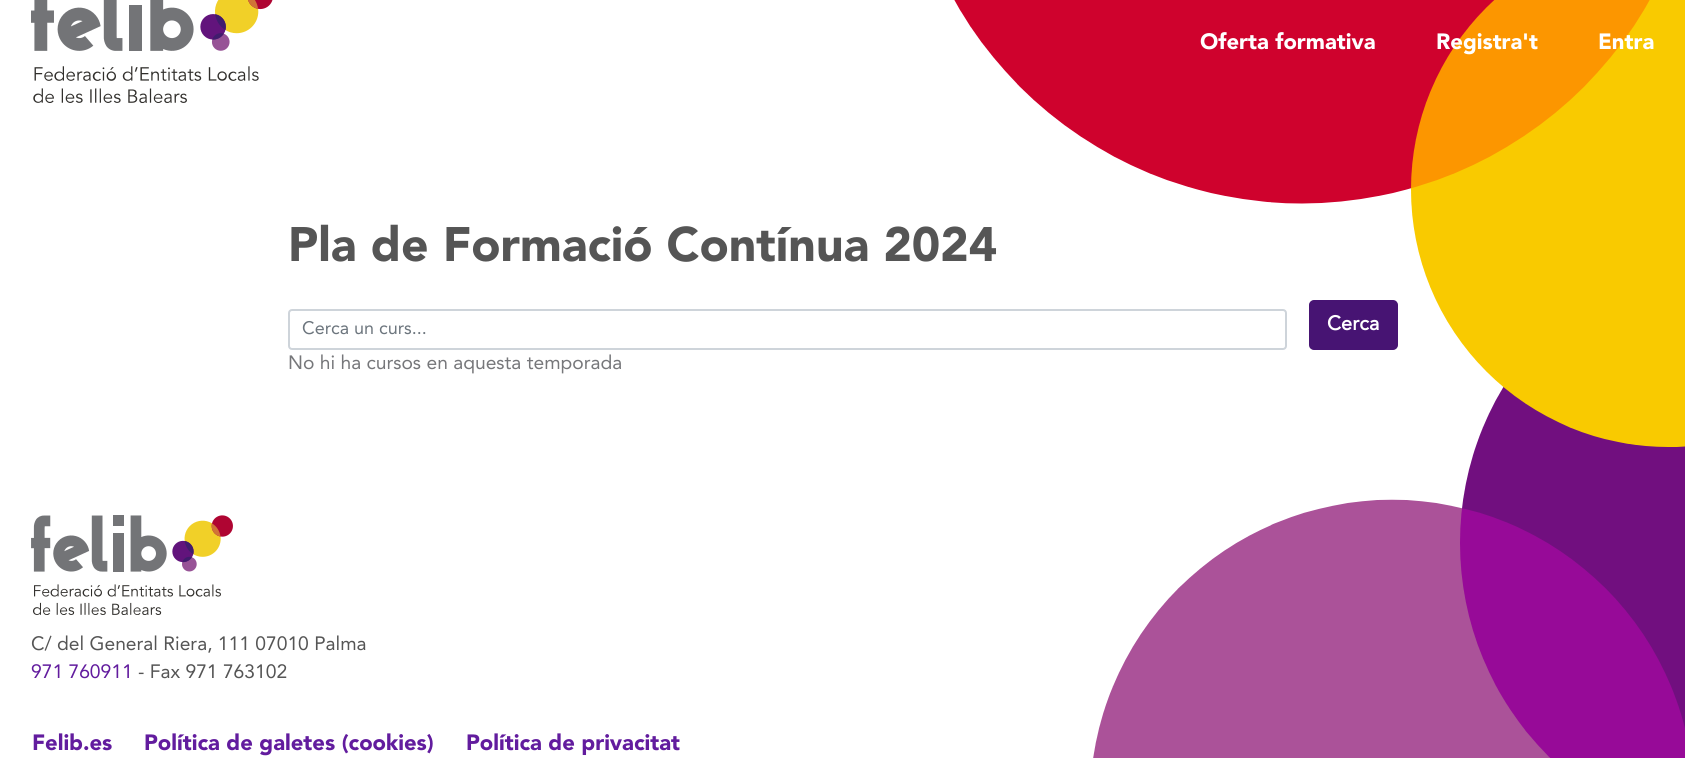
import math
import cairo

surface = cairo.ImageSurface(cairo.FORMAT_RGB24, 1685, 758)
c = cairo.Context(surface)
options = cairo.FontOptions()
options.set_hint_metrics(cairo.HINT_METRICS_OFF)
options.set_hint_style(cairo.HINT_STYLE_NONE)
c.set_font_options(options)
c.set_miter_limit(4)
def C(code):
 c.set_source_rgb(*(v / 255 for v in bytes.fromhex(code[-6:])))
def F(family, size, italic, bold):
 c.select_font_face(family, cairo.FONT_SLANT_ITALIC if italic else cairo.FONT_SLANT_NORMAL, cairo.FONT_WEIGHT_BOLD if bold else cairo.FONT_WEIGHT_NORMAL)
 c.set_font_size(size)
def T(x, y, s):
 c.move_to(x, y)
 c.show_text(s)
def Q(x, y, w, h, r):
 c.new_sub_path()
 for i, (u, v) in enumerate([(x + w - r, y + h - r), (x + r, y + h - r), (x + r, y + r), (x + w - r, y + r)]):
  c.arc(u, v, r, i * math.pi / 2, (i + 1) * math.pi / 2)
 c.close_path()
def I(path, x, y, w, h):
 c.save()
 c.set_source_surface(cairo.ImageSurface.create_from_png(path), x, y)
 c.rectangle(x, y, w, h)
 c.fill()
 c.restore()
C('ffffff')
c.paint()
I('1.png',1093,386,592,372)
I('2.png',954,0,731,447)
I('3.png',31,0,242,103)
F('Avenir Black',22,0,0)
C('ffffff')
T(1200,49,'Oferta formativa')
T(1436,49,'Registra\'t')
T(1598,49,'Entra')
F('Avenir Black',48,0,0)
C('555555')
T(288,261,'Pla de Formació Contínua 2024')
Q(289,310,997,39,3)
C('ced4da')
c.stroke()
F('Avenir',18,0,0)
C('6c757d')
T(302,334,'Cerca un curs...')
C('471473')
Q(1310,301,87,48,4)
c.fill_preserve()
c.stroke()
F('Avenir',20,0,1)
C('ffffff')
T(1327,330,'Cerca')
F('Avenir',19.25,0,0)
C('76777a')
T(288,369,'No hi ha cursos en aquesta temporada')
I('4.png',31,515,202,100)
C('555555')
T(31,650,'C/ del General Riera, 111 07010 Palma')
C('621c9e')
T(31,678,'971 760911')
C('555555')
T(138,678,'- Fax 971 763102')
F('Avenir Black',22,0,0)
C('621c9e')
T(32,750,'Felib.es')
T(144,750,'Política de galetes (cookies)')
T(466,750,'Política de privacitat')
surface.write_to_png('o.png')
